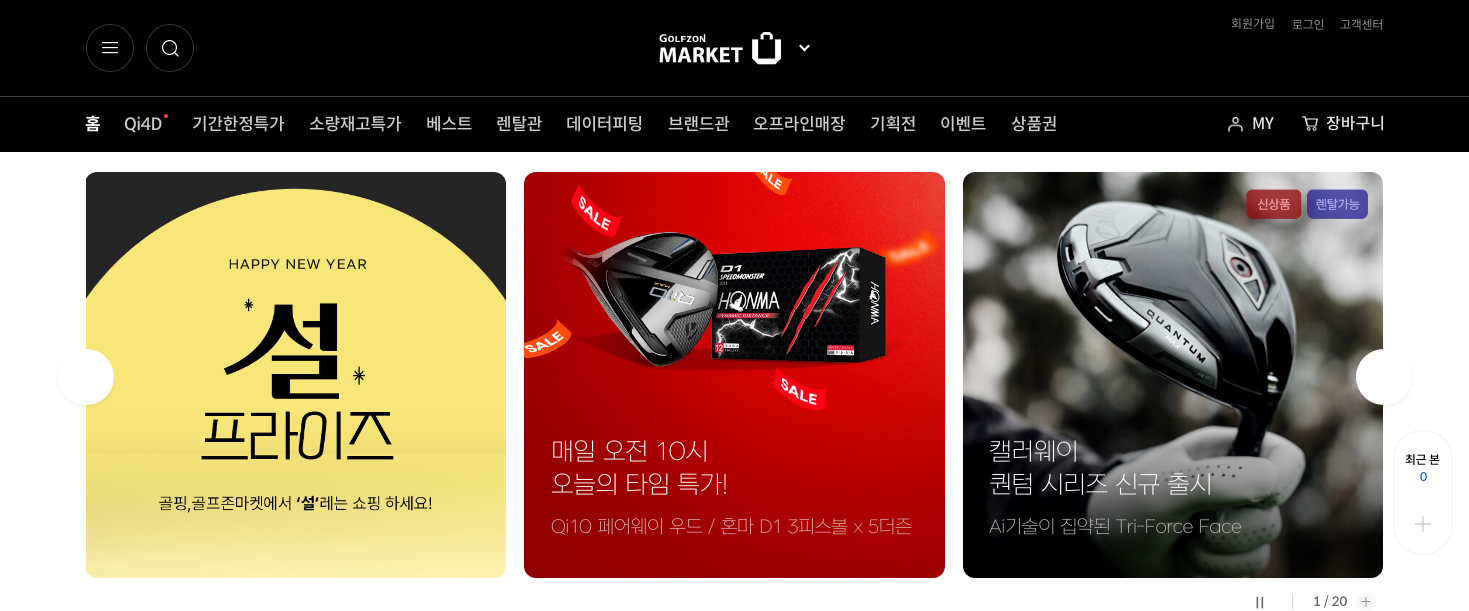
import math
import cairo

surface = cairo.ImageSurface(cairo.FORMAT_RGB24, 1469, 611)
c = cairo.Context(surface)
options = cairo.FontOptions()
options.set_hint_metrics(cairo.HINT_METRICS_OFF)
options.set_hint_style(cairo.HINT_STYLE_NONE)
c.set_font_options(options)
c.set_miter_limit(4)
def C(code):
 c.set_source_rgb(*(v / 255 for v in bytes.fromhex(code[-6:])))
def F(family, size, italic, bold):
 c.select_font_face(family, cairo.FONT_SLANT_ITALIC if italic else cairo.FONT_SLANT_NORMAL, cairo.FONT_WEIGHT_BOLD if bold else cairo.FONT_WEIGHT_NORMAL)
 c.set_font_size(size)
def T(x, y, s):
 c.move_to(x, y)
 c.show_text(s)
def L(x, y, s, letter, word):
 c.move_to(x, y)
 for ch in s:
  c.show_text(ch)
  c.rel_move_to(letter + word * (ch == ' '), 0)
def R(x, y, w, h):
 c.rectangle(x, y, w, h)
 c.fill()
def Q(x, y, w, h, r):
 c.new_sub_path()
 for i, (u, v) in enumerate([(x + w - r, y + h - r), (x + r, y + h - r), (x + r, y + r), (x + w - r, y + r)]):
  c.arc(u, v, r, i * math.pi / 2, (i + 1) * math.pi / 2)
 c.close_path()
def S(x, y, w, h, r, blur, alpha):
 c.push_group_with_content(cairo.CONTENT_ALPHA)
 c.set_operator(cairo.OPERATOR_SOURCE)
 for i in range(15, -16, -2):
  e = blur * i / 6
  if min(w, h) + 2 * e > 0:
   c.set_source_rgba(0, 0, 0, alpha * math.erfc((i - 1) / 8.5) / 2)
   Q(x - e, y - e, w + 2 * e, h + 2 * e, max(0, min(r + e + blur * .6, min(w, h) / 2 + e)))
   c.fill()
 c.mask(c.pop_group())
def I(path, x, y, w, h):
 c.save()
 c.set_source_surface(cairo.ImageSurface.create_from_png(path), x, y)
 c.rectangle(x, y, w, h)
 c.fill()
 c.restore()
C('ffffff')
c.paint()
C('000000')
R(0,0,1469,96)
c.arc(110,48,23.5,0,2 * math.pi)
C('333333')
c.set_line_width(1)
c.stroke()
I('1.png',102,42,16,12)
c.arc(170,48,23.5,0,2 * math.pi)
c.stroke()
I('2.png',162,40,17,17)
I('3.png',659,32,122,33)
C('ffffff')
c.new_path()
c.move_to(800.5,44.5)
c.line_to(806,50)
c.line_to(804.5,51.5)
c.line_to(799,46)
c.close_path()
c.fill()
c.new_path()
c.move_to(803,50)
c.line_to(808.5,44.5)
c.line_to(810,46)
c.line_to(804.5,51.5)
c.close_path()
c.fill()
F('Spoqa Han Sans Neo',12,0,0)
C('8e8e8e')
T(1231,28,'회원가입')
L(1292,29,'로그인',-.25,0)
L(1340,29,'고객센터',-.25,0)
C('000000')
R(0,97,1469,55)
C('424242')
R(0,96,1469,1)
F('Spoqa Han Sans Neo',17,0,1)
C('ffffff')
L(85,130,'홈',-.25,0)
F('Spoqa Han Sans Neo Medium',17,0,0)
C('cccccc')
L(124,130,'Qi4D',-.25,0)
C('ff3d3d')
c.new_path()
c.arc(166,116,2,0,2 * math.pi)
c.fill()
C('cccccc')
L(192,130,'기간한정특가',-.25,0)
L(309,130,'소량재고특가',-.25,0)
L(426,130,'베스트',-.25,0)
L(496,130,'렌탈관',-.25,0)
L(566,130,'데이터피팅',-.25,0)
L(668,130,'브랜드관',-.25,0)
L(753,130,'오프라인매장',-.25,0)
L(870,130,'기획전',-.25,0)
L(940,130,'이벤트',-.25,0)
L(1011,130,'상품권',-.25,0)
I('4.png',1228,117,15,15)
F('Spoqa Han Sans Neo Medium',16,0,0)
C('e6e6e6')
L(1252,129,'MY',-.25,0)
I('5.png',1302,116,16,15)
T(1326,129,'장바구니')
I('6.png',86,172,420,406)
C('000000')
S(58,351,56,56,28,2,.06)
C('ffffff')
c.arc(86,377,28,0,2 * math.pi)
c.fill()
I('8.png',963,172,420,406)
C('000000')
S(1356,351,56,56,28,2,.06)
C('ffffff')
c.arc(1384,377,28,0,2 * math.pi)
c.fill()
I('7.png',524,172,421,406)
F('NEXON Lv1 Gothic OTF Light',24,0,0)
L(551,460,'매일 오전 10시',-.4,0)
L(551,493,'오늘의 타임 특가!',-.4,0)
F('NEXON Lv1 Gothic OTF Light',18,0,0)
C('e3b3b3')
L(551,533,'Qi10 페어웨이 우드 / 혼마 D1 3피스볼 x 5더즌',-.4,0)
F('NEXON Lv1 Gothic OTF Light',24,0,0)
C('ffffff')
L(989,460,'캘러웨이',-.4,0)
L(989,493,'퀀텀 시리즈 신규 출시',-.4,0)
F('NEXON Lv1 Gothic OTF Light',18,0,0)
C('b9bab9')
L(989,533,'Ai기술이 집약된 Tri-Force Face',-.4,0)
I('9.png',1256,596,8,13)
C('d4d9e3')
R(1292,594,1,16)
F('Spoqa Han Sans Neo Medium',13,0,0)
C('616161')
T(1313,606,'1 / 20')
I('10.png',1356,592,20,19)
Q(1393.5,430.5,59,124,29.5)
C('f0f2f6')
c.stroke()
F('Spoqa Han Sans Neo Medium',12,0,0)
C('000000')
L(1405,464,'최근 본',-.25,0)
C('0057ff')
L(1420,481,'0',-.25,0)
I('11.png',1415,516,16,16)
surface.write_to_png('o.png')
